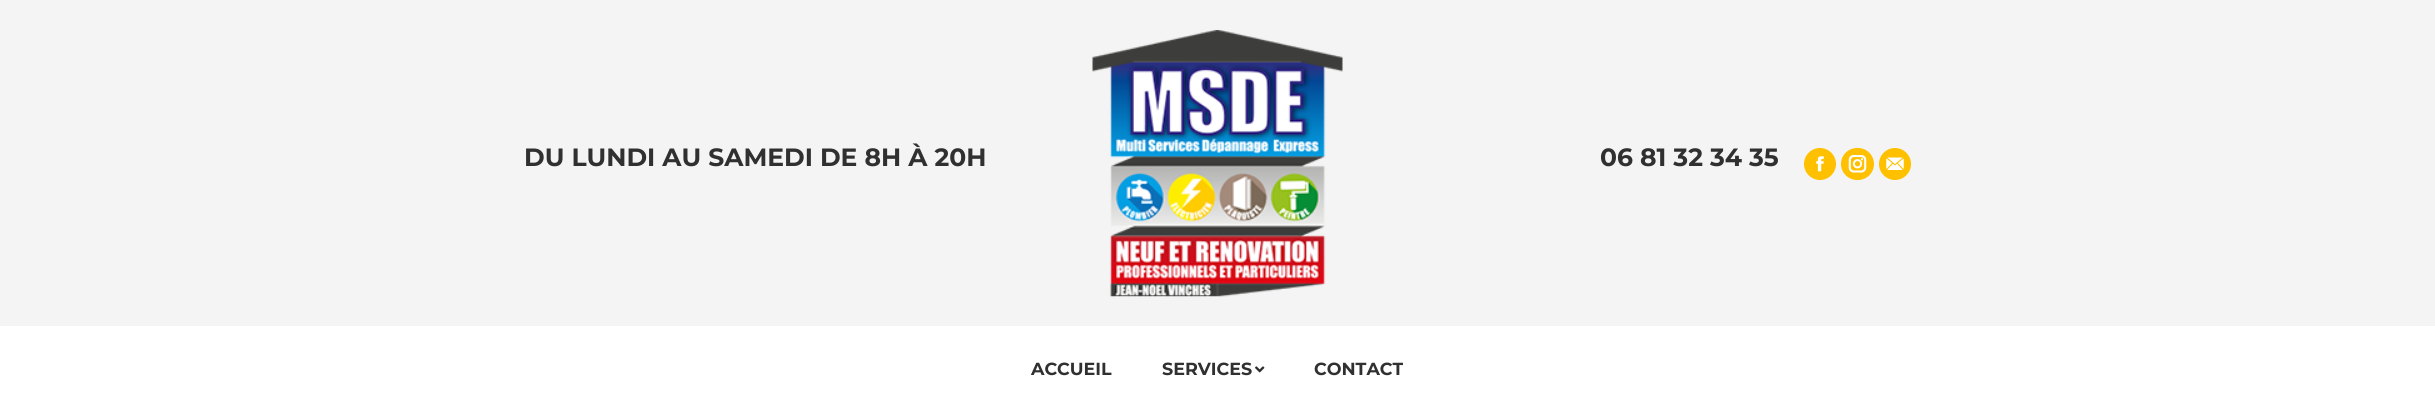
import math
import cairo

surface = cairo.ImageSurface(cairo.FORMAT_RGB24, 2435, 404)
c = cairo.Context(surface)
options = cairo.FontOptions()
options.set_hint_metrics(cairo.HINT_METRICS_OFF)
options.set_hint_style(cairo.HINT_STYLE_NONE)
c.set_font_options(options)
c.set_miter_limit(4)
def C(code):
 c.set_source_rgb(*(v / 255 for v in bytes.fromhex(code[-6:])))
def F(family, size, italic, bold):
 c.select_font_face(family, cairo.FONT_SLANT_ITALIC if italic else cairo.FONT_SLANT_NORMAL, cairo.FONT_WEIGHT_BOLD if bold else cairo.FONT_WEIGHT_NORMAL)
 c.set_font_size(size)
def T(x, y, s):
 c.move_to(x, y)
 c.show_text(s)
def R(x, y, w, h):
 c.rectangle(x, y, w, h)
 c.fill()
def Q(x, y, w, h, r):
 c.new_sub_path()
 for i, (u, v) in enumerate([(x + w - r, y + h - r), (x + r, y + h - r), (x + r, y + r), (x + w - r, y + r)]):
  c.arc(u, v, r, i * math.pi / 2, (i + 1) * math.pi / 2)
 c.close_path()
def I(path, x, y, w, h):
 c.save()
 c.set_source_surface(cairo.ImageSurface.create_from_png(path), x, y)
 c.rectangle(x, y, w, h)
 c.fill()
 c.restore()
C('f4f4f4')
c.paint()
F('Montserrat',25,0,1)
C('303030')
T(524,166,'DU LUNDI AU SAMEDI DE 8H À 20H')
I('1.png',1092,30,251,267)
T(1600,166,'06 81 32 34 35')
C('ffc000')
c.new_path()
c.arc(1820,164,16,0,2 * math.pi)
c.fill()
I('2.png',1816,156,8,16)
Q(1841,148,33,32,16)
c.fill()
I('3.png',1848,155,19,18)
c.arc(1895,164,16,0,2 * math.pi)
c.fill()
I('4.png',1886,157,18,13)
C('ffffff')
R(0,326,2435,78)
F('Montserrat',17.5,0,1)
C('303030')
T(1031,375,'ACCUEIL')
T(1162,375,'SERVICES')
I('5.png',1255,366,10,7)
T(1314,375,'CONTACT')
surface.write_to_png('o.png')
